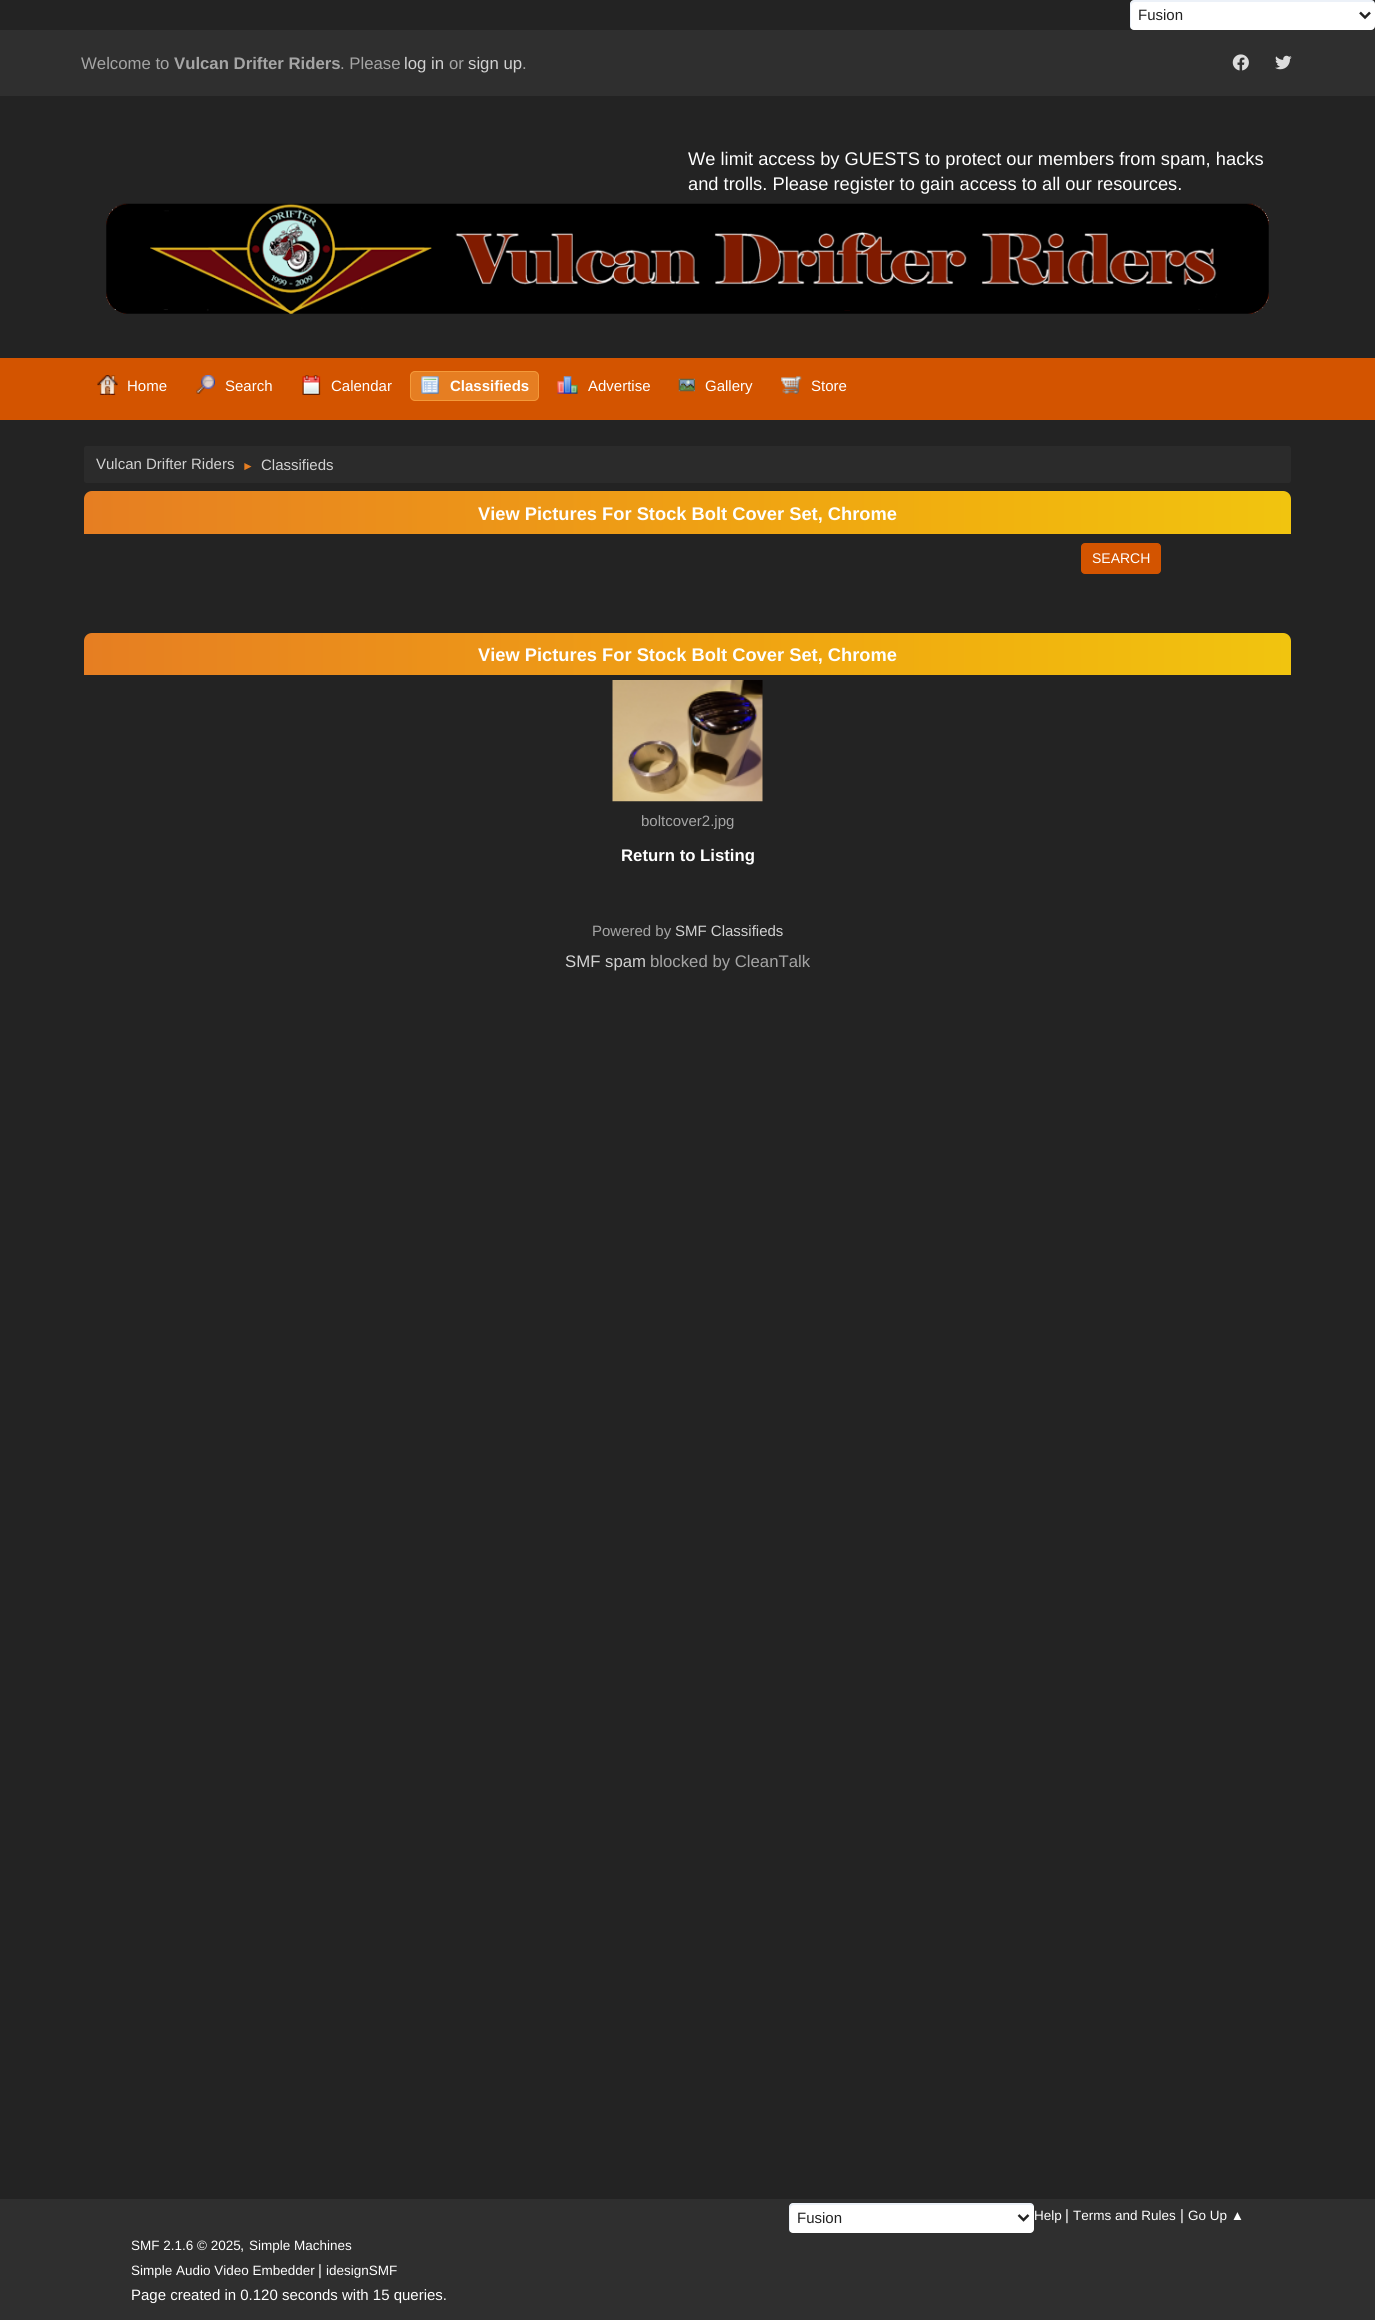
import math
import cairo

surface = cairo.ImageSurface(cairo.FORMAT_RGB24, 1375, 2320)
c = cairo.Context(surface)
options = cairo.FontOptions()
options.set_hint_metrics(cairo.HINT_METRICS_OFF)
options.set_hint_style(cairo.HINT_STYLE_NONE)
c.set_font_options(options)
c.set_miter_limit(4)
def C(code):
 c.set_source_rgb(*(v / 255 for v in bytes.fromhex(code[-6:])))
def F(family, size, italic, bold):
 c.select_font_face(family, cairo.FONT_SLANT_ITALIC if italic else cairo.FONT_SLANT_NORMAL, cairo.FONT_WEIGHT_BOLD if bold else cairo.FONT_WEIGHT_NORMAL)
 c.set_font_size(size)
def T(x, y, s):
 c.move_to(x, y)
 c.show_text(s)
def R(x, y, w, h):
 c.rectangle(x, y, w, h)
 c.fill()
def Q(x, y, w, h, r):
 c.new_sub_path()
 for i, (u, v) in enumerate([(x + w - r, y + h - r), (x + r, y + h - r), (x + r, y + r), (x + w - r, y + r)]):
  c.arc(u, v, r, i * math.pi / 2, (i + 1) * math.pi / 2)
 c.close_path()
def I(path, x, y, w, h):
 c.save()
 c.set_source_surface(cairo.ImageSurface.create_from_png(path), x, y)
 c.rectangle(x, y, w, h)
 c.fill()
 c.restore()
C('232323')
c.paint()
C('ffffff')
Q(1130,0,245,30,4)
c.fill()
c.set_source_rgba(0.627,0.733,0.867,0.2)
c.new_path()
c.move_to(1135,2)
c.line_to(1372,2)
c.curve_to(1373,2,1374,2,1375,3)
c.curve_to(1374,1,1373,0,1371,0)
c.line_to(1134,0)
c.curve_to(1132,0,1130,2,1130,4)
c.line_to(1130,26)
c.curve_to(1130,27,1130,28,1131,29)
c.line_to(1131,6)
c.curve_to(1131,4,1133,2,1135,2)
c.close_path()
c.fill()
c.new_path()
c.move_to(1360,12.5)
c.line_to(1365,17.5)
c.line_to(1370,12.5)
C('222222')
c.set_line_width(2.5)
c.stroke()
F('Liberation Sans',15,0,0)
T(1138,20,'Fusion')
C('2f2f2f')
R(0,30,1375,66)
F('Liberation Sans',16.75,0,0)
C('a5a5a5')
T(81,69,'Welcome to')
F('Liberation Sans',16.75,0,1)
T(174,69,'Vulcan Drifter Riders')
F('Liberation Sans',16.75,0,0)
T(340,69,'. Please')
C('d2d2d2')
T(404,69,'log in')
C('a5a5a5')
T(449,69,'or')
C('d2d2d2')
T(468,69,'sign up')
C('a5a5a5')
T(522,69,'.')
I('1.png',1232,54,17,17)
I('2.png',1275,55,17,15)
F('Liberation Sans',18.3,0,0)
C('ffffff')
T(688,165,'We limit access by GUESTS to protect our members from spam, hacks')
T(688,190,'and trolls. Please register to gain access to all our resources.')
I('3.png',106,203,1163,111)
C('d35400')
R(0,358,1375,62)
I('4.png',97,375,21,20)
F('Liberation Sans',15,0,0)
C('ffffff')
T(127,391,'Home')
I('5.png',196,375,19,19)
T(225,391,'Search')
I('6.png',302,375,19,20)
T(331,391,'Calendar')
C('e67e22')
Q(410.5,371.5,128,29,4.5)
c.fill_preserve()
C('f49a3a')
c.set_line_width(1)
c.stroke()
I('7.png',421,376,18,18)
F('Liberation Sans',15,0,1)
C('ffffff')
T(450,391,'Classifieds')
I('8.png',557,376,21,18)
F('Liberation Sans',15,0,0)
T(588,391,'Advertise')
I('9.png',678,378,17,14)
T(705,391,'Gallery')
I('10.png',781,376,21,18)
T(811,391,'Store')
C('2b2b2b')
Q(84,446,1207,37,2.5)
c.fill()
C('d2d2d2')
T(96,469,'Vulcan Drifter Riders')
F('Liberation Sans',12,0,0)
C('e67e22')
T(242,470,'►')
F('Liberation Sans',15,0,0)
C('d2d2d2')
T(261,470,'Classifieds')
gradient = cairo.LinearGradient(84,513,1291,512)
gradient.add_color_stop_rgba(0,0.902,0.494,0.133,1)
gradient.add_color_stop_rgba(.25,0.922,0.561,0.106,1)
gradient.add_color_stop_rgba(.5,0.937,0.627,0.078,1)
gradient.add_color_stop_rgba(.75,0.945,0.698,0.055,1)
gradient.add_color_stop_rgba(1,0.945,0.769,0.059,1)
c.set_source(gradient)
c.new_path()
c.move_to(92,491)
c.line_to(1283,491)
c.curve_to(1287.5,491,1291,494.5,1291,499)
c.line_to(1291,534)
c.line_to(84,534)
c.line_to(84,499)
c.curve_to(84,494.5,87.5,491,92,491)
c.close_path()
c.fill()
F('Liberation Sans',18.3,0,1)
C('ffffff')
T(478,520,'View Pictures For Stock Bolt Cover Set, Chrome')
C('d35400')
Q(1081.5,543.5,79,30,3.5)
c.fill_preserve()
c.stroke()
F('Liberation Sans',14,0,0)
C('ffffff')
T(1092,563,'SEARCH')
gradient = cairo.LinearGradient(84,654,1291,654)
gradient.add_color_stop_rgba(0,0.902,0.494,0.133,1)
gradient.add_color_stop_rgba(.25,0.922,0.561,0.106,1)
gradient.add_color_stop_rgba(.5,0.937,0.627,0.078,1)
gradient.add_color_stop_rgba(.75,0.945,0.698,0.055,1)
gradient.add_color_stop_rgba(1,0.945,0.769,0.059,1)
c.set_source(gradient)
c.new_path()
c.move_to(92,633)
c.line_to(1283,633)
c.curve_to(1287.5,633,1291,636.5,1291,641)
c.line_to(1291,675)
c.line_to(84,675)
c.line_to(84,641)
c.curve_to(84,636.5,87.5,633,92,633)
c.close_path()
c.fill()
F('Liberation Sans',18.3,0,1)
C('ffffff')
T(478,661,'View Pictures For Stock Bolt Cover Set, Chrome')
I('11.png',612,680,151,122)
F('Liberation Sans',15,0,0)
C('a5a5a5')
T(641,826,'boltcover2.jpg')
F('Liberation Sans',16.75,0,1)
C('ffffff')
T(621,861,'Return to Listing')
F('Liberation Sans',15,0,0)
C('a5a5a5')
T(592,936,'Powered by')
C('d2d2d2')
T(675,936,'SMF Classifieds')
F('Liberation Sans',16.75,0,0)
T(565,967,'SMF spam')
C('a5a5a5')
T(650,967,'blocked by CleanTalk')
C('2f2f2f')
R(0,2199,1375,121)
C('ffffff')
Q(789,2203,245,30,4)
c.fill()
c.set_source_rgba(0.627,0.733,0.867,0.2)
c.new_path()
c.move_to(794,2205)
c.line_to(1031,2205)
c.curve_to(1032,2205,1033,2206,1034,2206)
c.curve_to(1034,2205,1032,2203,1030,2203)
c.line_to(793,2203)
c.curve_to(791,2203,789,2205,789,2207)
c.line_to(789,2229)
c.curve_to(789,2230,789,2231,790,2232)
c.line_to(790,2220)
c.curve_to(790,2217,788,2205,794,2205)
c.close_path()
c.fill()
c.new_path()
c.move_to(1018.5,2215)
c.line_to(1023.5,2220)
c.line_to(1028.5,2215)
C('222222')
c.set_line_width(2.5)
c.stroke()
F('Liberation Sans',15,0,0)
T(797,2223,'Fusion')
F('Liberation Sans',13.5,0,0)
C('ffffff')
T(131,2250,'SMF 2.1.6 © 2025')
F('Liberation Sans',15,0,0)
T(240,2250,',')
F('Liberation Sans',13.5,0,0)
T(249,2250,'Simple Machines')
T(131,2275,'Simple Audio Video Embedder')
F('Liberation Sans',15,0,0)
T(318,2275,'|')
F('Liberation Sans',13.5,0,0)
T(326,2275,'idesignSMF')
T(1034,2220,'Help')
F('Liberation Sans',15,0,0)
T(1065,2220,'|')
F('Liberation Sans',13.5,0,0)
T(1073,2220,'Terms and Rules')
F('Liberation Sans',15,0,0)
T(1180,2220,'|')
F('Liberation Sans',13.5,0,0)
T(1188,2220,'Go Up ▲')
F('Liberation Sans',15,0,0)
T(131,2300,'Page created in 0.120 seconds with 15 queries.')
surface.write_to_png('o.png')
